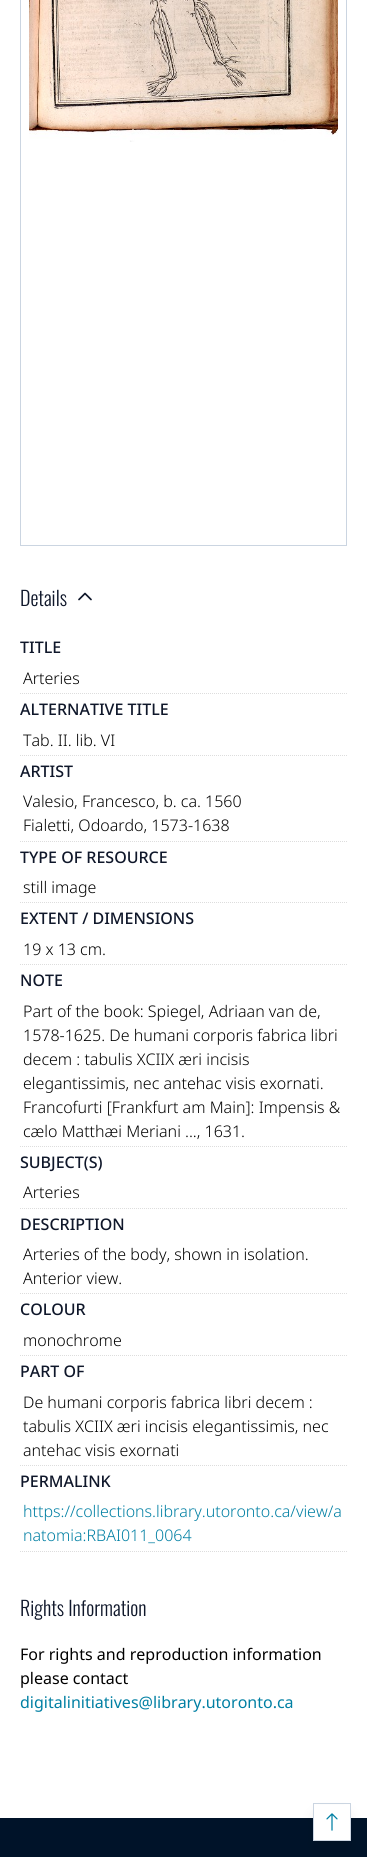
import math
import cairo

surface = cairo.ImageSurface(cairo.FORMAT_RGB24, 367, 1857)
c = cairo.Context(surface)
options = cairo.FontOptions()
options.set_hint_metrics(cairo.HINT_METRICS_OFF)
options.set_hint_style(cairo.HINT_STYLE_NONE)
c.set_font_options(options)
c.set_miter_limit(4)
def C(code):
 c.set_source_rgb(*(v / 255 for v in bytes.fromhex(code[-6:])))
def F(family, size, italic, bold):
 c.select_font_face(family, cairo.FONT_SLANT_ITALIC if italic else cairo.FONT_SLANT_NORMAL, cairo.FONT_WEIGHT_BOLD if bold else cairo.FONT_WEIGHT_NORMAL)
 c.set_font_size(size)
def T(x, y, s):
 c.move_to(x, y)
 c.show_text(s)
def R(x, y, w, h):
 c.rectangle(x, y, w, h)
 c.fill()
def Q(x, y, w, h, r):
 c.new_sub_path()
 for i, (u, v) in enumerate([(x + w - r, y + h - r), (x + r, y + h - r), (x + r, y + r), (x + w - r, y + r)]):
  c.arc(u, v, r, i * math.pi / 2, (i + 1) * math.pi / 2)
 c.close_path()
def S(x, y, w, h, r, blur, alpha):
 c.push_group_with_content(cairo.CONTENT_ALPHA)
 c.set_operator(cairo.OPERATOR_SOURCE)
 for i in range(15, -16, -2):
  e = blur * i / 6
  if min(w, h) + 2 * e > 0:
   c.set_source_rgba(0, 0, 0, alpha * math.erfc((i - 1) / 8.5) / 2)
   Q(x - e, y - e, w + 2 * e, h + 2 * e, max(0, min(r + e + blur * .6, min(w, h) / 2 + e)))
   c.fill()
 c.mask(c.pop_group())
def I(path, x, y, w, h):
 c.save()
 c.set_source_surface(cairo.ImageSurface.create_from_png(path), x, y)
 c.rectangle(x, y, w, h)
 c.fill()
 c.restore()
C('ffffff')
c.paint()
c.rectangle(20.5,-.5,326,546)
C('cbd5e1')
c.set_line_width(1)
c.stroke()
I('1.png',29,0,309,142)
F('Oswald Light',20,0,0)
C('0f172a')
T(20,606,'Details')
c.new_path()
c.move_to(79,599.5)
c.line_to(85,593.5)
c.line_to(91,599.5)
c.set_line_width(1.7)
c.set_line_cap(cairo.LINE_CAP_ROUND)
c.set_line_join(cairo.LINE_JOIN_ROUND)
c.stroke()
F('Noto Sans Medium',16,0,0)
T(20,653,'TITLE')
c.new_path()
c.move_to(20,693.5)
c.line_to(347,693.5)
C('dddddd')
c.set_line_width(1)
c.set_line_cap(cairo.LINE_CAP_BUTT)
c.set_line_join(cairo.LINE_JOIN_MITER)
c.set_dash([1,1])
c.stroke()
F('Noto Sans Light',16,0,0)
C('000000')
T(23,684,'Arteries')
F('Noto Sans Medium',16,0,0)
C('0f172a')
T(20,715,'ALTERNATIVE TITLE')
c.new_path()
c.move_to(20,755.5)
c.line_to(347,755.5)
C('dddddd')
c.stroke()
F('Noto Sans Light',16,0,0)
C('000000')
T(23,746,'Tab. II. lib. VI')
F('Noto Sans Medium',16,0,0)
C('0f172a')
T(20,777,'ARTIST')
c.new_path()
c.move_to(20,841.5)
c.line_to(347,841.5)
C('dddddd')
c.stroke()
F('Noto Sans Light',16,0,0)
C('000000')
T(23,807,'Valesio, Francesco, b. ca. 1560')
T(23,831,'Fialetti, Odoardo, 1573-1638')
F('Noto Sans Medium',16,0,0)
C('0f172a')
T(20,863,'TYPE OF RESOURCE')
c.new_path()
c.move_to(20,902.5)
c.line_to(347,902.5)
C('dddddd')
c.stroke()
F('Noto Sans Light',16,0,0)
C('000000')
T(23,893,'still image')
F('Noto Sans Medium',16,0,0)
C('0f172a')
T(20,924,'EXTENT / DIMENSIONS')
c.new_path()
c.move_to(20,964.5)
c.line_to(347,964.5)
C('dddddd')
c.stroke()
F('Noto Sans Light',16,0,0)
C('000000')
T(23,955,'19 x 13 cm.')
F('Noto Sans Medium',16,0,0)
C('0f172a')
T(20,986,'NOTE')
c.new_path()
c.move_to(20,1146.5)
c.line_to(347,1146.5)
C('dddddd')
c.stroke()
F('Noto Sans Light',16,0,0)
C('000000')
T(23,1017,'Part of the book: Spiegel, Adriaan van de,')
T(23,1041,'1578-1625. De humani corporis fabrica libri')
T(23,1065,'decem : tabulis XCIIX æri incisis')
T(23,1089,'elegantissimis, nec antehac visis exornati.')
T(23,1113,'Francofurti [Frankfurt am Main]: Impensis &')
T(23,1137,'cælo Matthæi Meriani ..., 1631.')
F('Noto Sans Medium',16,0,0)
C('0f172a')
T(20,1168,'SUBJECT(S)')
c.new_path()
c.move_to(20,1208.5)
c.line_to(347,1208.5)
C('dddddd')
c.stroke()
F('Noto Sans Light',16,0,0)
C('000000')
T(23,1198,'Arteries')
F('Noto Sans Medium',16,0,0)
C('0f172a')
T(20,1230,'DESCRIPTION')
c.new_path()
c.move_to(20,1293.5)
c.line_to(347,1293.5)
C('dddddd')
c.stroke()
F('Noto Sans Light',16,0,0)
C('000000')
T(23,1260,'Arteries of the body, shown in isolation.')
T(23,1284,'Anterior view.')
F('Noto Sans Medium',16,0,0)
C('0f172a')
T(20,1315,'COLOUR')
c.new_path()
c.move_to(20,1355.5)
c.line_to(347,1355.5)
C('dddddd')
c.stroke()
F('Noto Sans Light',16,0,0)
C('000000')
T(23,1346,'monochrome')
F('Noto Sans Medium',16,0,0)
C('0f172a')
T(20,1377,'PART OF')
c.new_path()
c.move_to(20,1465.5)
c.line_to(347,1465.5)
C('dddddd')
c.stroke()
F('Noto Sans Light',16,0,0)
C('000000')
T(23,1408,'De humani corporis fabrica libri decem :')
T(23,1432,'tabulis XCIIX æri incisis elegantissimis, nec')
T(23,1456,'antehac visis exornati')
F('Noto Sans Medium',16,0,0)
C('0f172a')
T(20,1487,'PERMALINK')
c.new_path()
c.move_to(20,1551.5)
c.line_to(347,1551.5)
C('dddddd')
c.stroke()
F('Noto Sans Light',16,0,0)
C('007fa3')
T(23,1517,'https://collections.library.utoronto.ca/view/a')
T(23,1541,'natomia:RBAI011_0064')
F('Oswald Light',20,0,0)
C('0f172a')
T(20,1616,'Rights Information')
F('Noto Sans',16,0,0)
C('000000')
T(20,1660,'For rights and reproduction information')
T(20,1684,'please contact')
C('007fa3')
T(20,1708,'digitalinitiatives@library.utoronto.ca')
C('001329')
R(0,1818,367,39)
C('000000')
S(317,1811,30,30,0,3,.1)
S(316,1816,32,32,0,7.5,.1)
C('ffffff')
R(314,1805,36,35)
c.rectangle(313.5,1803.5,37,37)
C('cbd5e1')
c.set_dash([])
c.stroke()
I('2.png',326,1813,12,18)
surface.write_to_png('o.png')
